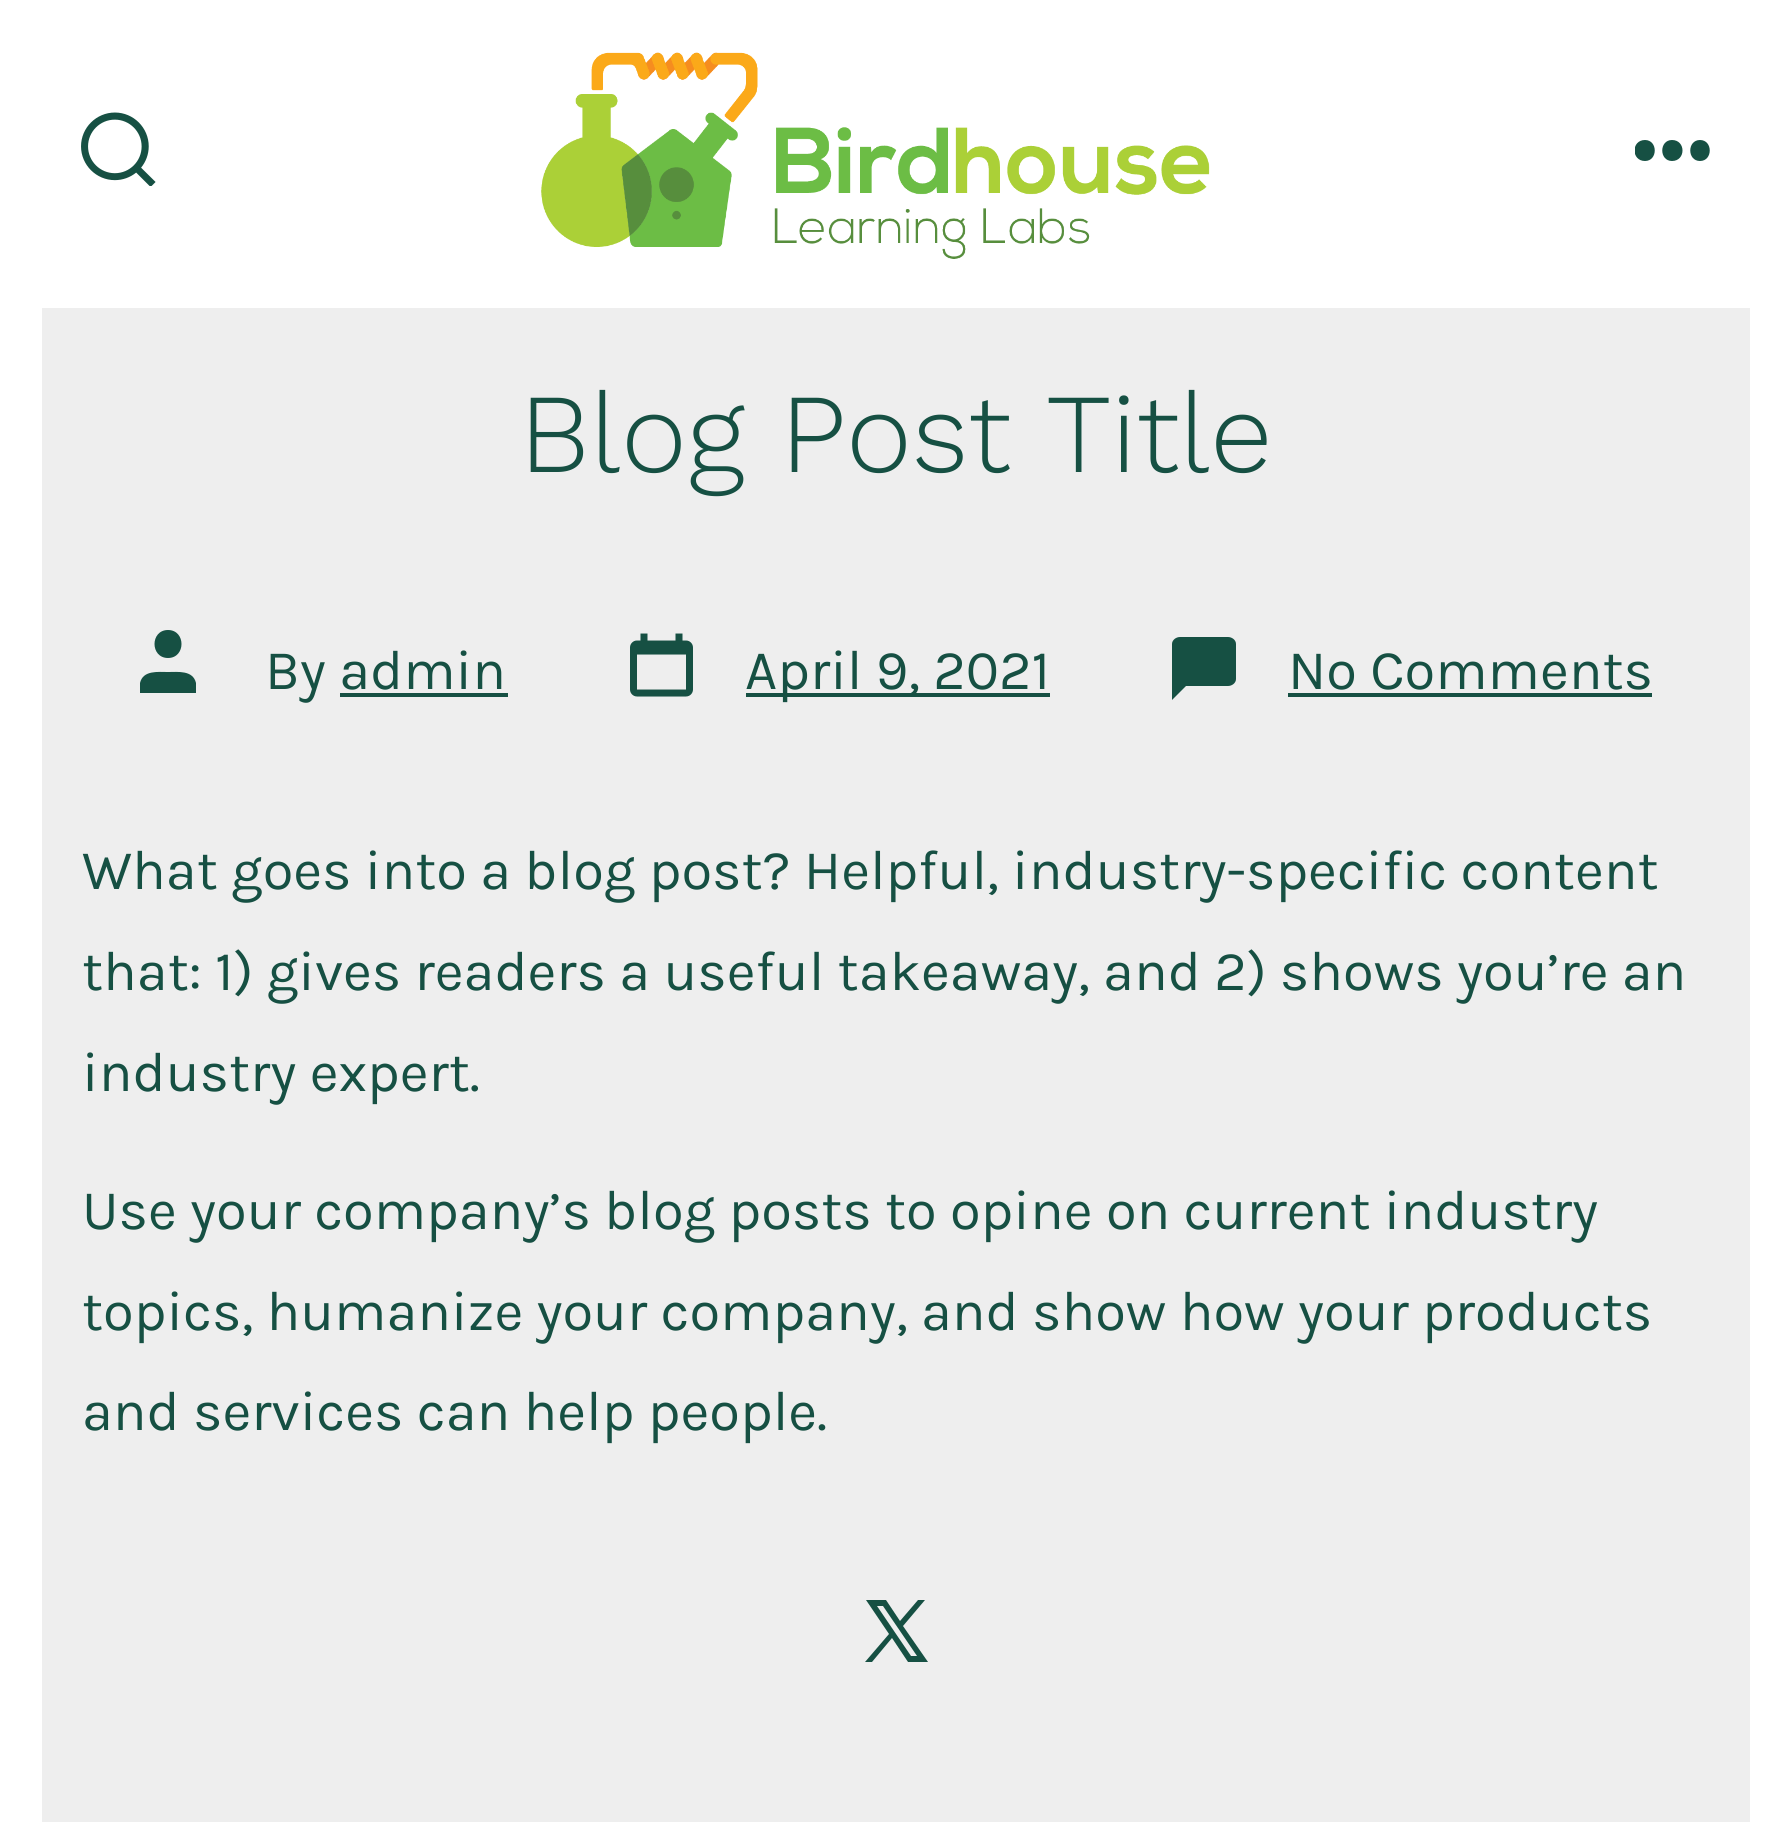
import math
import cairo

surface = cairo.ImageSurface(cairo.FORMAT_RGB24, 1792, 1822)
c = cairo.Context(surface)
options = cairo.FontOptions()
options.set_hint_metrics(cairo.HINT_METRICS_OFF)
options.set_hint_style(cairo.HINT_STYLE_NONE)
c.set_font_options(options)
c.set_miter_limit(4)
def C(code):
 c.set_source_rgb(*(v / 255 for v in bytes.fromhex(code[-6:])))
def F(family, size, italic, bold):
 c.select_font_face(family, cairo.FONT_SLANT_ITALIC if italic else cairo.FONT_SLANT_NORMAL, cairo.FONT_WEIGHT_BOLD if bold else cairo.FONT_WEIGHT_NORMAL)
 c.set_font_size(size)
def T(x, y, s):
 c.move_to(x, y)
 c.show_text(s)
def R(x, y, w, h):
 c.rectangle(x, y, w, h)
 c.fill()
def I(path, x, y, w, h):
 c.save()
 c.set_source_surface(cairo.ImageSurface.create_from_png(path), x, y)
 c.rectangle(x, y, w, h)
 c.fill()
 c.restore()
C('eeeeee')
c.paint()
C('ffffff')
R(1750,0,42,1822)
R(0,0,42,1822)
R(42,0,1708,308)
I('1.png',81,112,75,74)
I('2.png',541,52,669,207)
c.save()
c.rectangle(1635,112,77,74)
c.clip()
C('165043')
c.new_path()
c.move_to(1645,161)
c.curve_to(1631,161,1631,140,1645,140)
c.curve_to(1658,140,1658,161,1645,161)
c.close_path()
c.move_to(1672,161)
c.curve_to(1659,161,1659,140,1672,140)
c.curve_to(1686,140,1686,161,1672,161)
c.close_path()
c.move_to(1700,161)
c.curve_to(1687,161,1687,140,1700,140)
c.curve_to(1713,140,1713,161,1700,161)
c.close_path()
c.fill()
c.restore()
F('Work Sans Light',112.5,0,0)
C('165043')
T(519,472,'Blog Post Title')
c.new_path()
c.move_to(196,693)
c.line_to(140,693)
c.line_to(140,683)
c.curve_to(143,670,158,672,168,672)
c.curve_to(178,672,193,670,196,683)
c.close_path()
c.move_to(168,658)
c.curve_to(150,658,150,630,168,630)
c.curve_to(186,630,186,658,168,658)
c.close_path()
c.fill()
F('Karla',56,0,0)
T(265,689,'By admin')
R(340,693,168,4)
I('3.png',630,633,63,64)
R(746,693,304,4)
T(745,689,'April 9, 2021')
c.new_path()
c.move_to(1236,679)
c.curve_to(1236,683,1232,686,1228,686)
c.line_to(1186,686)
c.line_to(1172,700)
c.line_to(1172,644)
c.curve_to(1172,640,1176,637,1180,637)
c.line_to(1228,637)
c.curve_to(1232,637,1236,640,1236,644)
c.close_path()
c.fill()
T(1288,689,'No Comments')
R(1288,693,364,4)
T(82,889,'What goes into a blog post? Helpful, industry-specific content')
T(82,990,'that: 1) gives readers a useful takeaway, and 2) shows you’re an')
T(82,1091,'industry expert.')
T(82,1229,'Use your company’s blog posts to opine on current industry')
T(82,1330,'topics, humanize your company, and show how your products')
T(82,1430,'and services can help people.')
c.new_path()
c.move_to(928,1662)
c.line_to(903,1626)
c.line_to(925,1600)
c.line_to(918,1600)
c.line_to(900,1621)
c.line_to(886,1600)
c.line_to(866,1600)
c.line_to(889,1634)
c.line_to(865,1662)
c.line_to(872,1662)
c.line_to(892,1638)
c.line_to(908,1662)
c.close_path()
c.move_to(883,1606)
c.line_to(917,1656)
c.line_to(911,1656)
c.line_to(877,1606)
c.close_path()
c.fill()
surface.write_to_png('o.png')
